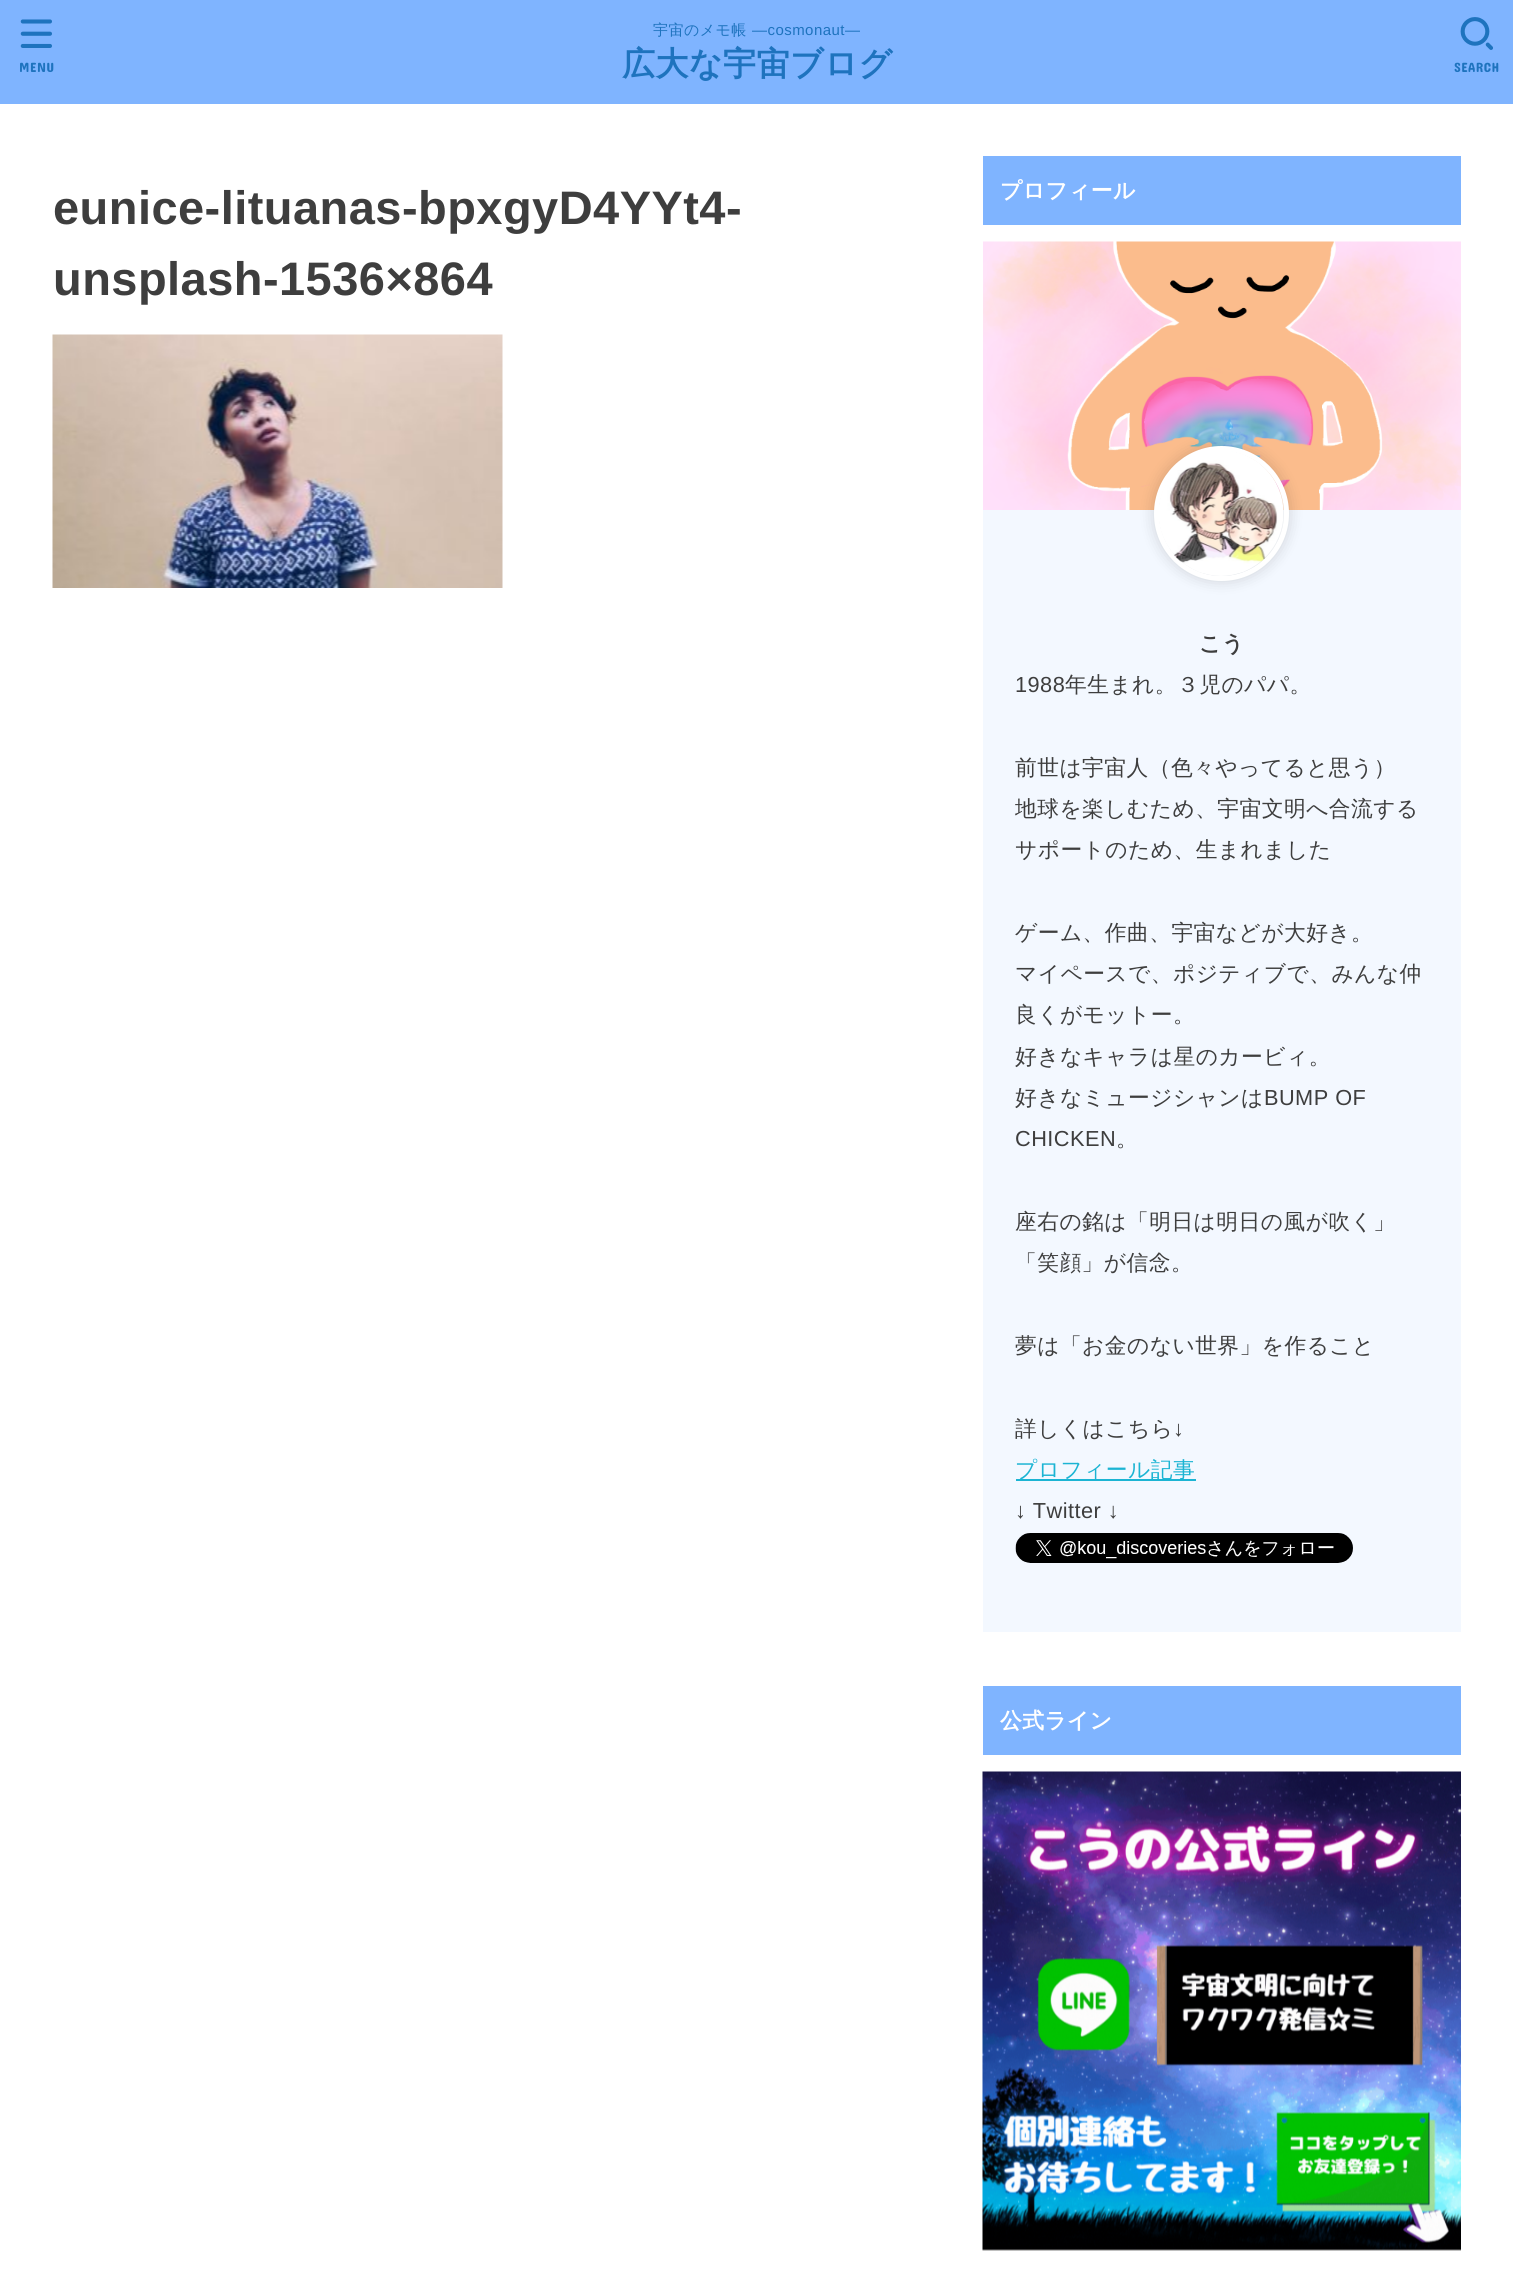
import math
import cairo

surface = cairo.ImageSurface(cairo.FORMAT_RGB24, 1513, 2269)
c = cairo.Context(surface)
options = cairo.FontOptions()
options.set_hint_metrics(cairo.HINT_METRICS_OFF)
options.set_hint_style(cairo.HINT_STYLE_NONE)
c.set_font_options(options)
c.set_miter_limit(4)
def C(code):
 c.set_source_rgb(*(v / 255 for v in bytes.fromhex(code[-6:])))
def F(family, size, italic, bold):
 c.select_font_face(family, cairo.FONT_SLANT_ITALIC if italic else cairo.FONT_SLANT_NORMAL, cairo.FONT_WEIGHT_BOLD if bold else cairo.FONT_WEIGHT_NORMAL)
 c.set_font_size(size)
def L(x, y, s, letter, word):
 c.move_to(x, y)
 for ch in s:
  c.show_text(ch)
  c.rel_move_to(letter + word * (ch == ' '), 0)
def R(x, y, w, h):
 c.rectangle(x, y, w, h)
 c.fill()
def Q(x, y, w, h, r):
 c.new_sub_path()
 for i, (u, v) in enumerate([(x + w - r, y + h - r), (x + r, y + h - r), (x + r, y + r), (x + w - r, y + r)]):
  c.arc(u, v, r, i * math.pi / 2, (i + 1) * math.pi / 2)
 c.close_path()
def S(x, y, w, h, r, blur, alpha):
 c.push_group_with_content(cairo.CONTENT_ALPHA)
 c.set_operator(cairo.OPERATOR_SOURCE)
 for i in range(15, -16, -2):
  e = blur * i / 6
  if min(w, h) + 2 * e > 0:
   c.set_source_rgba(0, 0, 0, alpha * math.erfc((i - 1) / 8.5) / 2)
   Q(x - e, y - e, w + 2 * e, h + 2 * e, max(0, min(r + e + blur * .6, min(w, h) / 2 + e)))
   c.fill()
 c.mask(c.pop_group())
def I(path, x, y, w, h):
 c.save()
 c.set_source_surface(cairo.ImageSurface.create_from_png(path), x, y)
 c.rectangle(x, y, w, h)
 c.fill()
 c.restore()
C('ffffff')
c.paint()
C('7fb4ff')
R(0,0,1513,104)
I('1.png',20,19,32,29)
F('Concert One',13.5,0,0)
C('1e73be')
L(19,72,'MENU',.45,0)
F('WenQuanYi Zen Hei Medium',15,0,0)
L(653,35,'宇宙のメモ帳',.45,0)
F('Liberation Sans',15,0,0)
L(752,35,'―cosmonaut―',.45,0)
F('WenQuanYi Zen Hei',33,0,1)
L(622,75,'広大な宇宙ブログ',.45,0)
I('2.png',1460,17,33,33)
F('Concert One',13.5,0,0)
L(1454,72,'SEARCH',.45,0)
F('Liberation Sans',47,0,1)
C('3e3e3e')
L(53,224,'eunice-lituanas-bpxgyD4YYt4-',.45,0)
L(53,295,'unsplash-1536×864',.45,0)
I('3.png',52,334,451,254)
C('7fb4ff')
R(983,156,478,69)
F('WenQuanYi Zen Hei',21.75,0,1)
C('ffffff')
L(1000,198,'プロフィール',.45,0)
C('f3f8ff')
R(983,510,478,1122)
I('4.png',983,241,478,269)
C('000000')
S(1154,446,135,135,67.5,7.5,.15)
c.arc(1221.5,513.5,65,0,2 * math.pi)
C('ffffff')
c.set_line_width(5)
c.stroke()
I('5.png',1159,451,125,125)
C('3e3e3e')
L(1199,651,'こう',.45,0)
F('Liberation Sans',21.75,0,0)
L(1015,692,'1988',.45,0)
F('WenQuanYi Zen Hei Medium',21.75,0,0)
L(1065,692,'年生まれ。３児のパパ。',.45,0)
L(1015,775,'前世は宇宙人（色々やってると思う）',.45,0)
L(1015,816,'地球を楽しむため、宇宙文明へ合流する',.45,0)
L(1015,857,'サポートのため、生まれました',.45,0)
L(1015,940,'ゲーム、作曲、宇宙などが大好き。',.45,0)
L(1015,981,'マイペースで、ポジティブで、みんな仲',.45,0)
L(1015,1022,'良くがモットー。',.45,0)
L(1015,1064,'好きなキャラは星のカービィ。',.45,0)
L(1015,1105,'好きなミュージシャンは',.45,0)
F('Liberation Sans',21.75,0,0)
L(1264,1105,'BUMP OF',.45,0)
L(1015,1146,'CHICKEN',.45,0)
F('WenQuanYi Zen Hei Medium',21.75,0,0)
L(1116,1146,'。',.45,0)
L(1015,1229,'座右の銘は「明日は明日の風が吹く」',.45,0)
L(1015,1270,'「笑顔」が信念。',.45,0)
L(1015,1353,'夢は「お金のない世界」を作ること',.45,0)
L(1015,1436,'詳しくはこちら',.45,0)
F('Liberation Sans',21.75,0,0)
L(1173,1436,'↓',.45,0)
C('1bb4d3')
R(1016,1479,180,2)
F('WenQuanYi Zen Hei Medium',21.75,0,0)
L(1015,1477,'プロフィール記事',.45,0)
F('Liberation Sans',21.75,0,0)
C('3e3e3e')
L(1015,1518,'↓ Twitter ↓',.45,0)
I('6.png',1015,1533,338,30)
C('7fb4ff')
R(983,1686,478,69)
F('WenQuanYi Zen Hei',21.75,0,1)
C('ffffff')
L(1000,1728,'公式ライン',.45,0)
I('7.png',982,1771,479,480)
surface.write_to_png('o.png')
